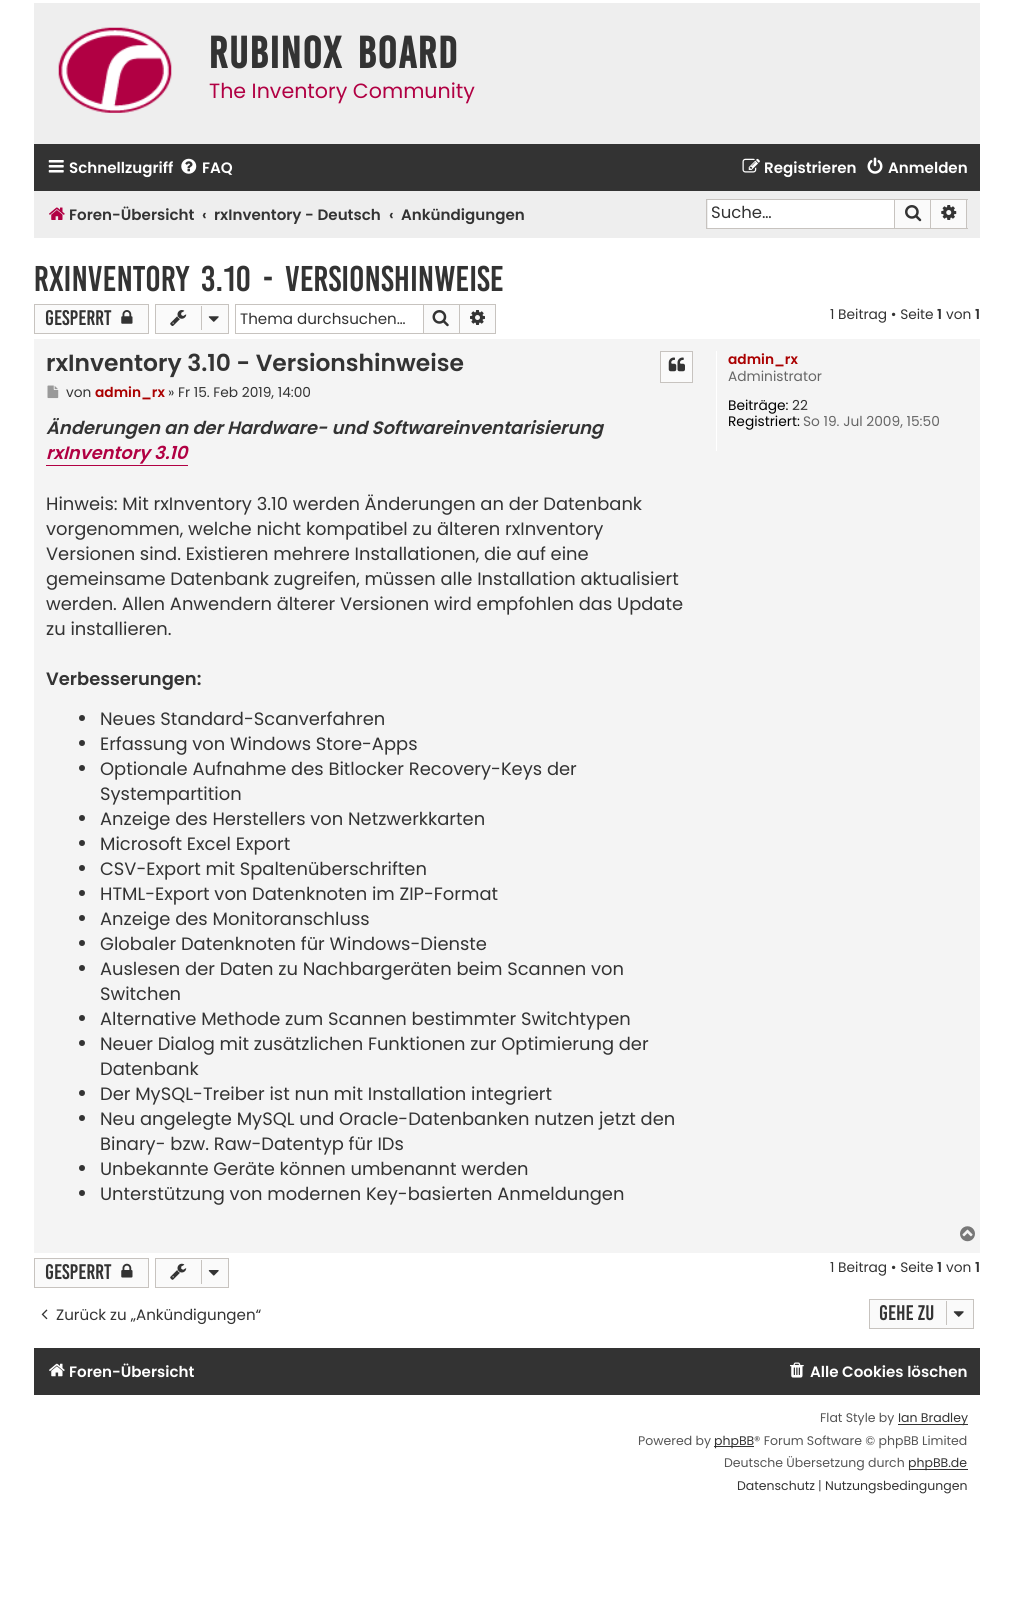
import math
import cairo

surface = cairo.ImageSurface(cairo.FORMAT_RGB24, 1013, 1606)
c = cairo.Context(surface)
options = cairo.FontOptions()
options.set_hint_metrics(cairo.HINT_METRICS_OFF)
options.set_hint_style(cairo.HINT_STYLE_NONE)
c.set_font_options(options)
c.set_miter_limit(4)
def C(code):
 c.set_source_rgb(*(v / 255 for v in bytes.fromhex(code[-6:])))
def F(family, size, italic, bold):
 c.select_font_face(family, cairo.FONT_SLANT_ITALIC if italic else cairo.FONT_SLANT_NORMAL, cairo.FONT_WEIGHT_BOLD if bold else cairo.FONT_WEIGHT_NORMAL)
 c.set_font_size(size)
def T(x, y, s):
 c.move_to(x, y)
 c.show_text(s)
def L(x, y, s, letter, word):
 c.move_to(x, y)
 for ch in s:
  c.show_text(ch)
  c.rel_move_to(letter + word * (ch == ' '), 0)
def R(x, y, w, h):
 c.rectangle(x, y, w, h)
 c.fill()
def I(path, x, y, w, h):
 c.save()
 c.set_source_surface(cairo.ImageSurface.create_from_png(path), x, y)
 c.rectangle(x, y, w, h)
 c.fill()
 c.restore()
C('ffffff')
c.paint()
C('eeeeee')
R(34,3,946,141)
I('1.png',58,27,114,86)
F('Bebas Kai',34.5,0,1)
C('333333')
L(209,68,'Rubinox Board',1.25,5)
F('Poppins',20.6,0,0)
C('b10043')
T(209,98,'The Inventory Community')
C('333333')
R(34,144,946,47)
I('2.png',48,160,16,13)
F('Poppins SemiBold',15.1,0,0)
C('ffffff')
T(69,173,'Schnellzugriff')
I('3.png',181,158,16,16)
T(202,173,'FAQ')
I('4.png',742,158,18,15)
T(764,173,'Registrieren')
I('5.png',867,157,16,17)
T(888,173,'Anmelden')
C('eeeeee')
R(34,191,946,47)
I('6.png',49,207,16,13)
C('333333')
T(69,220,'Foren-Übersicht')
T(202,220,'‹')
T(214,220,'rxInventory - Deutsch')
T(389,220,'‹')
T(401,220,'Ankündigungen')
C('ffffff')
R(708,200,186,28)
C('c7c3bf')
R(706,199,188,1)
R(706,228,188,1)
R(706,199,1,30)
F('Poppins',16.5,0,0)
C('333333')
T(711,218,'Suche…')
C('fafafa')
c.rectangle(894.5,199.5,36,29)
c.fill_preserve()
C('c7c3bf')
c.set_line_width(1)
c.stroke()
I('7.png',905,205,17,17)
C('fafafa')
R(931,200,35,28)
C('c7c3bf')
R(931,199,37,1)
R(966,199,1,30)
R(931,228,37,1)
I('8.png',941,205,16,15)
F('Bebas Kai',27.5,0,0)
C('333333')
L(34,291,'rxInventory 3.10 - Versionshinweise',0,5)
C('fafafa')
c.rectangle(34.5,304.5,114,29)
c.fill_preserve()
C('c7c3bf')
c.stroke()
F('Bebas Kai',16.25,0,0)
C('333333')
T(45,325,'Gesperrt')
I('9.png',121,310,12,14)
C('fafafa')
c.rectangle(155.5,304.5,73,29)
c.fill_preserve()
C('c7c3bf')
c.stroke()
I('10.png',170,310,17,16)
R(201,306,1,24)
I('11.png',208,316,11,6)
R(235,304,188,1)
R(235,333,188,1)
R(235,304,1,30)
F('Poppins',15.1,0,0)
C('333333')
T(240,324,'Thema durchsuchen…')
C('fafafa')
c.rectangle(423.5,304.5,36,29)
c.fill_preserve()
C('c7c3bf')
c.stroke()
I('12.png',432,310,17,17)
C('fafafa')
R(460,305,35,28)
C('c7c3bf')
R(460,304,36,1)
R(495,304,1,30)
R(460,333,36,1)
I('13.png',470,310,15,15)
F('Poppins',13.75,0,0)
C('333333')
T(830,319,'1 Beitrag • Seite')
F('Poppins SemiBold',13.75,0,0)
T(937,319,'1')
F('Poppins',13.75,0,0)
T(946,319,'von')
F('Poppins SemiBold',13.75,0,0)
T(975,319,'1')
C('f4f4f4')
R(34,339,946,914)
F('Poppins SemiBold',23.4,0,0)
C('333333')
T(46,371,'rxInventory 3.10 - Versionshinweise')
C('fafafa')
c.rectangle(660.5,351.5,32,31)
c.fill_preserve()
C('c7c3bf')
c.stroke()
I('14.png',668,357,17,15)
I('15.png',47,385,12,14)
F('Poppins',13.75,0,0)
C('333333')
T(66,397,'von')
F('Poppins SemiBold',13.75,0,0)
C('aa0000')
T(95,397,'admin_rx')
F('Poppins',13.75,0,0)
C('333333')
T(168,397,'» Fr 15. Feb 2019, 14:00')
F('Poppins SemiBold',17.9,1,0)
T(46,434,'Änderungen an der Hardware- und Softwareinventarisierung')
C('b10043')
R(46,465,142,1)
T(46,459,'rxInventory 3.10')
F('Poppins',17.9,0,0)
C('333333')
T(46,510,'Hinweis: Mit rxInventory 3.10 werden Änderungen an der Datenbank')
T(46,535,'vorgenommen, welche nicht kompatibel zu älteren rxInventory')
T(46,560,'Versionen sind. Existieren mehrere Installationen, die auf eine')
T(46,585,'gemeinsame Datenbank zugreifen, müssen alle Installation aktualisiert')
T(46,610,'werden. Allen Anwendern älterer Versionen wird empfohlen das Update')
T(46,635,'zu installieren.')
F('Poppins SemiBold',17.9,0,0)
T(46,685,'Verbesserungen:')
c.new_path()
c.arc(82,718,3,0,2 * math.pi)
c.fill()
F('Poppins',17.9,0,0)
T(100,725,'Neues Standard-Scanverfahren')
c.new_path()
c.arc(82,743,3,0,2 * math.pi)
c.fill()
T(100,750,'Erfassung von Windows Store-Apps')
c.new_path()
c.arc(82,768,3,0,2 * math.pi)
c.fill()
T(100,775,'Optionale Aufnahme des Bitlocker Recovery-Keys der')
T(100,800,'Systempartition')
c.new_path()
c.arc(82,818,3,0,2 * math.pi)
c.fill()
T(100,825,'Anzeige des Herstellers von Netzwerkkarten')
c.new_path()
c.arc(82,843,3,0,2 * math.pi)
c.fill()
T(100,850,'Microsoft Excel Export')
c.new_path()
c.arc(82,868,3,0,2 * math.pi)
c.fill()
T(100,875,'CSV-Export mit Spaltenüberschriften')
c.new_path()
c.arc(82,893,3,0,2 * math.pi)
c.fill()
T(100,900,'HTML-Export von Datenknoten im ZIP-Format')
c.new_path()
c.arc(82,918,3,0,2 * math.pi)
c.fill()
T(100,925,'Anzeige des Monitoranschluss')
c.new_path()
c.arc(82,943,3,0,2 * math.pi)
c.fill()
T(100,950,'Globaler Datenknoten für Windows-Dienste')
c.new_path()
c.arc(82,968,3,0,2 * math.pi)
c.fill()
T(100,975,'Auslesen der Daten zu Nachbargeräten beim Scannen von')
T(100,1000,'Switchen')
c.new_path()
c.arc(82,1018,3,0,2 * math.pi)
c.fill()
T(100,1025,'Alternative Methode zum Scannen bestimmter Switchtypen')
c.new_path()
c.arc(82,1043,3,0,2 * math.pi)
c.fill()
T(100,1050,'Neuer Dialog mit zusätzlichen Funktionen zur Optimierung der')
T(100,1075,'Datenbank')
c.new_path()
c.arc(82,1093,3,0,2 * math.pi)
c.fill()
T(100,1100,'Der MySQL-Treiber ist nun mit Installation integriert')
c.new_path()
c.arc(82,1118,3,0,2 * math.pi)
c.fill()
T(100,1125,'Neu angelegte MySQL und Oracle-Datenbanken nutzen jetzt den')
T(100,1150,'Binary- bzw. Raw-Datentyp für IDs')
c.new_path()
c.arc(82,1168,3,0,2 * math.pi)
c.fill()
T(100,1175,'Unbekannte Geräte können umbenannt werden')
c.new_path()
c.arc(82,1193,3,0,2 * math.pi)
c.fill()
T(100,1200,'Unterstützung von modernen Key-basierten Anmeldungen')
C('ffffff')
R(716,351,1,100)
F('Poppins SemiBold',13.75,0,0)
C('aa0000')
T(728,364,'admin_rx')
F('Poppins',13.75,0,0)
C('666666')
T(728,381,'Administrator')
C('000000')
T(728,410,'Beiträge:')
C('333333')
T(792,410,'22')
C('000000')
T(728,426,'Registriert:')
C('666666')
T(803,426,'So 19. Jul 2009, 15:50')
I('16.png',960,1226,15,16)
C('fafafa')
c.rectangle(34.5,1258.5,114,29)
c.fill_preserve()
C('c7c3bf')
c.stroke()
F('Bebas Kai',16.25,0,0)
C('333333')
T(45,1279,'Gesperrt')
I('17.png',121,1263,12,15)
C('fafafa')
c.rectangle(155.5,1258.5,73,29)
c.fill_preserve()
C('c7c3bf')
c.stroke()
I('18.png',170,1263,17,17)
R(201,1260,1,24)
I('19.png',208,1270,11,6)
F('Poppins',13.75,0,0)
C('333333')
T(830,1272,'1 Beitrag • Seite')
F('Poppins SemiBold',13.75,0,0)
T(937,1272,'1')
F('Poppins',13.75,0,0)
T(946,1272,'von')
F('Poppins SemiBold',13.75,0,0)
T(975,1272,'1')
I('20.png',41,1309,7,11)
F('Poppins',15.1,0,0)
T(56,1320,'Zurück zu „Ankündigungen“')
C('fafafa')
c.rectangle(869.5,1299.5,104,29)
c.fill_preserve()
C('c7c3bf')
c.stroke()
F('Bebas Kai',16.25,0,0)
C('333333')
T(879,1320,'Gehe zu')
C('c7c3bf')
R(946,1301,1,24)
I('11.png',953,1311,11,6)
C('333333')
R(34,1348,946,47)
I('21.png',49,1363,16,14)
F('Poppins SemiBold',15.1,0,0)
C('ffffff')
T(69,1377,'Foren-Übersicht')
I('22.png',790,1362,14,16)
T(810,1377,'Alle Cookies löschen')
F('Poppins',12.5,0,0)
C('555555')
T(820,1422,'Flat Style by')
C('333333')
R(898,1424,70,1)
T(898,1422,'Ian Bradley')
C('555555')
T(638,1445,'Powered by')
C('333333')
R(714,1446,40,1)
T(714,1445,'phpBB')
C('555555')
T(754,1445,'® Forum Software © phpBB Limited')
T(724,1467,'Deutsche Übersetzung durch')
C('333333')
R(909,1469,59,1)
T(908,1467,'phpBB.de')
T(737,1490,'Datenschutz')
C('555555')
T(818,1490,'|')
C('333333')
T(825,1490,'Nutzungsbedingungen')
surface.write_to_png('o.png')
